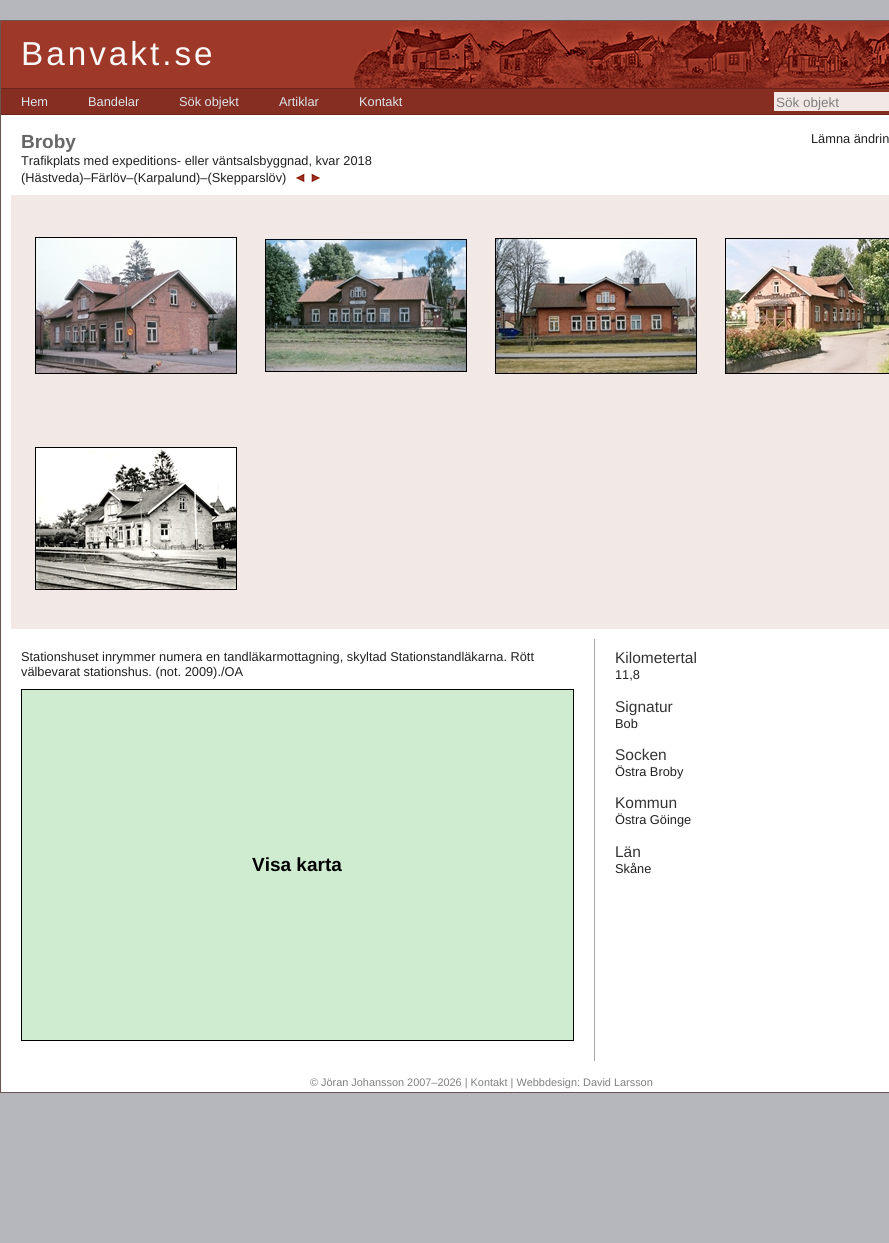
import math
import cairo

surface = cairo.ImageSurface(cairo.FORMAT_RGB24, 889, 1243)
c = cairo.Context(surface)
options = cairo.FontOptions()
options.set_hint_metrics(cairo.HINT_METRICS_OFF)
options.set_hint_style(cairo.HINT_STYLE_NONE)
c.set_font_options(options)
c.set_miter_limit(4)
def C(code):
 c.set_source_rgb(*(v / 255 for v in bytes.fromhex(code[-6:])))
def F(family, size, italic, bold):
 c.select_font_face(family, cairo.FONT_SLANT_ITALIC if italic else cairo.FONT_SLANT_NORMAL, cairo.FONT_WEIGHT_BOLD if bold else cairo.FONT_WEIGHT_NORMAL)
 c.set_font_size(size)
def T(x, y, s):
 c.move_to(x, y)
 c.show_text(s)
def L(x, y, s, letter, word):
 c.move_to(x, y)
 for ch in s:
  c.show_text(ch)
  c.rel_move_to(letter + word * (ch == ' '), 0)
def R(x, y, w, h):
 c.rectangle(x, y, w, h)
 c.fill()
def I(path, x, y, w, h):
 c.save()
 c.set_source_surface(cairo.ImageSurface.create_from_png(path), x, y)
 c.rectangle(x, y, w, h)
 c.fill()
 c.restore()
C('b6b7bc')
c.paint()
C('ffffff')
R(1,115,888,977)
c.rectangle(.5,20.5,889,1072)
C('6b5450')
c.set_line_width(1)
c.stroke()
C('9e3828')
R(1,21,352,67)
F('Liberation Sans',33.25,0,0)
C('f9f9f9')
L(21,65,'Banvakt.se',3,0)
I('1.png',353,21,536,67)
C('852e21')
R(1,89,888,25)
C('6b251b')
R(1,88,888,1)
R(1,114,888,1)
F('Liberation Sans',12.8,0,0)
C('dde4ec')
T(21,106,'Hem')
T(88,106,'Bandelar')
T(179,106,'Sök objekt')
T(279,106,'Artiklar')
T(359,106,'Kontakt')
C('f2e8e6')
R(774,92,115,19)
F('Liberation Sans',13.5,0,0)
C('808080')
T(776,107,'Sök objekt')
F('Liberation Sans',19,0,1)
C('666666')
T(21,148,'Broby')
F('Liberation Sans',12.8,0,0)
C('202020')
T(811,143,'Lämna ändrin')
T(21,165,'Trafikplats med expeditions- eller väntsalsbyggnad, kvar 2018')
T(21,182,'(Hästveda)–Färlöv–(Karpalund)–(Skepparslöv)')
I('2.png',294,173,11,10)
I('3.png',311,173,11,10)
C('f2e8e6')
R(11,195,878,434)
I('4.png',35,237,202,137)
I('5.png',265,238,202,134)
I('6.png',495,238,202,136)
I('7.png',725,237,164,137)
I('8.png',35,447,202,143)
C('aaaaaa')
R(594,639,1,422)
C('202020')
T(21,661,'Stationshuset inrymmer numera en tandläkarmottagning, skyltad Stationstandläkarna. Rött')
T(21,676,'välbevarat stationshus. (not. 2009)./OA')
C('cfecd1')
c.rectangle(21.5,689.5,552,351)
c.fill_preserve()
C('000000')
c.stroke()
F('Liberation Sans',19,0,1)
T(252,871,'Visa karta')
F('Liberation Sans',15.5,0,0)
C('333333')
T(615,663,'Kilometertal')
F('Liberation Sans',12.8,0,0)
C('202020')
T(615,679,'11,8')
F('Liberation Sans',15.5,0,0)
C('333333')
T(615,712,'Signatur')
F('Liberation Sans',12.8,0,0)
C('202020')
T(615,728,'Bob')
F('Liberation Sans',15.5,0,0)
C('333333')
T(615,760,'Socken')
F('Liberation Sans',12.8,0,0)
C('202020')
T(615,776,'Östra Broby')
F('Liberation Sans',15.5,0,0)
C('333333')
T(615,808,'Kommun')
F('Liberation Sans',12.8,0,0)
C('202020')
T(615,824,'Östra Göinge')
F('Liberation Sans',15.5,0,0)
C('333333')
T(615,857,'Län')
F('Liberation Sans',12.8,0,0)
C('202020')
T(615,873,'Skåne')
F('Liberation Sans',10.9,0,0)
C('808080')
T(310,1086,'© Jöran Johansson 2007–2026 | Kontakt | Webbdesign: David Larsson')
surface.write_to_png('o.png')
